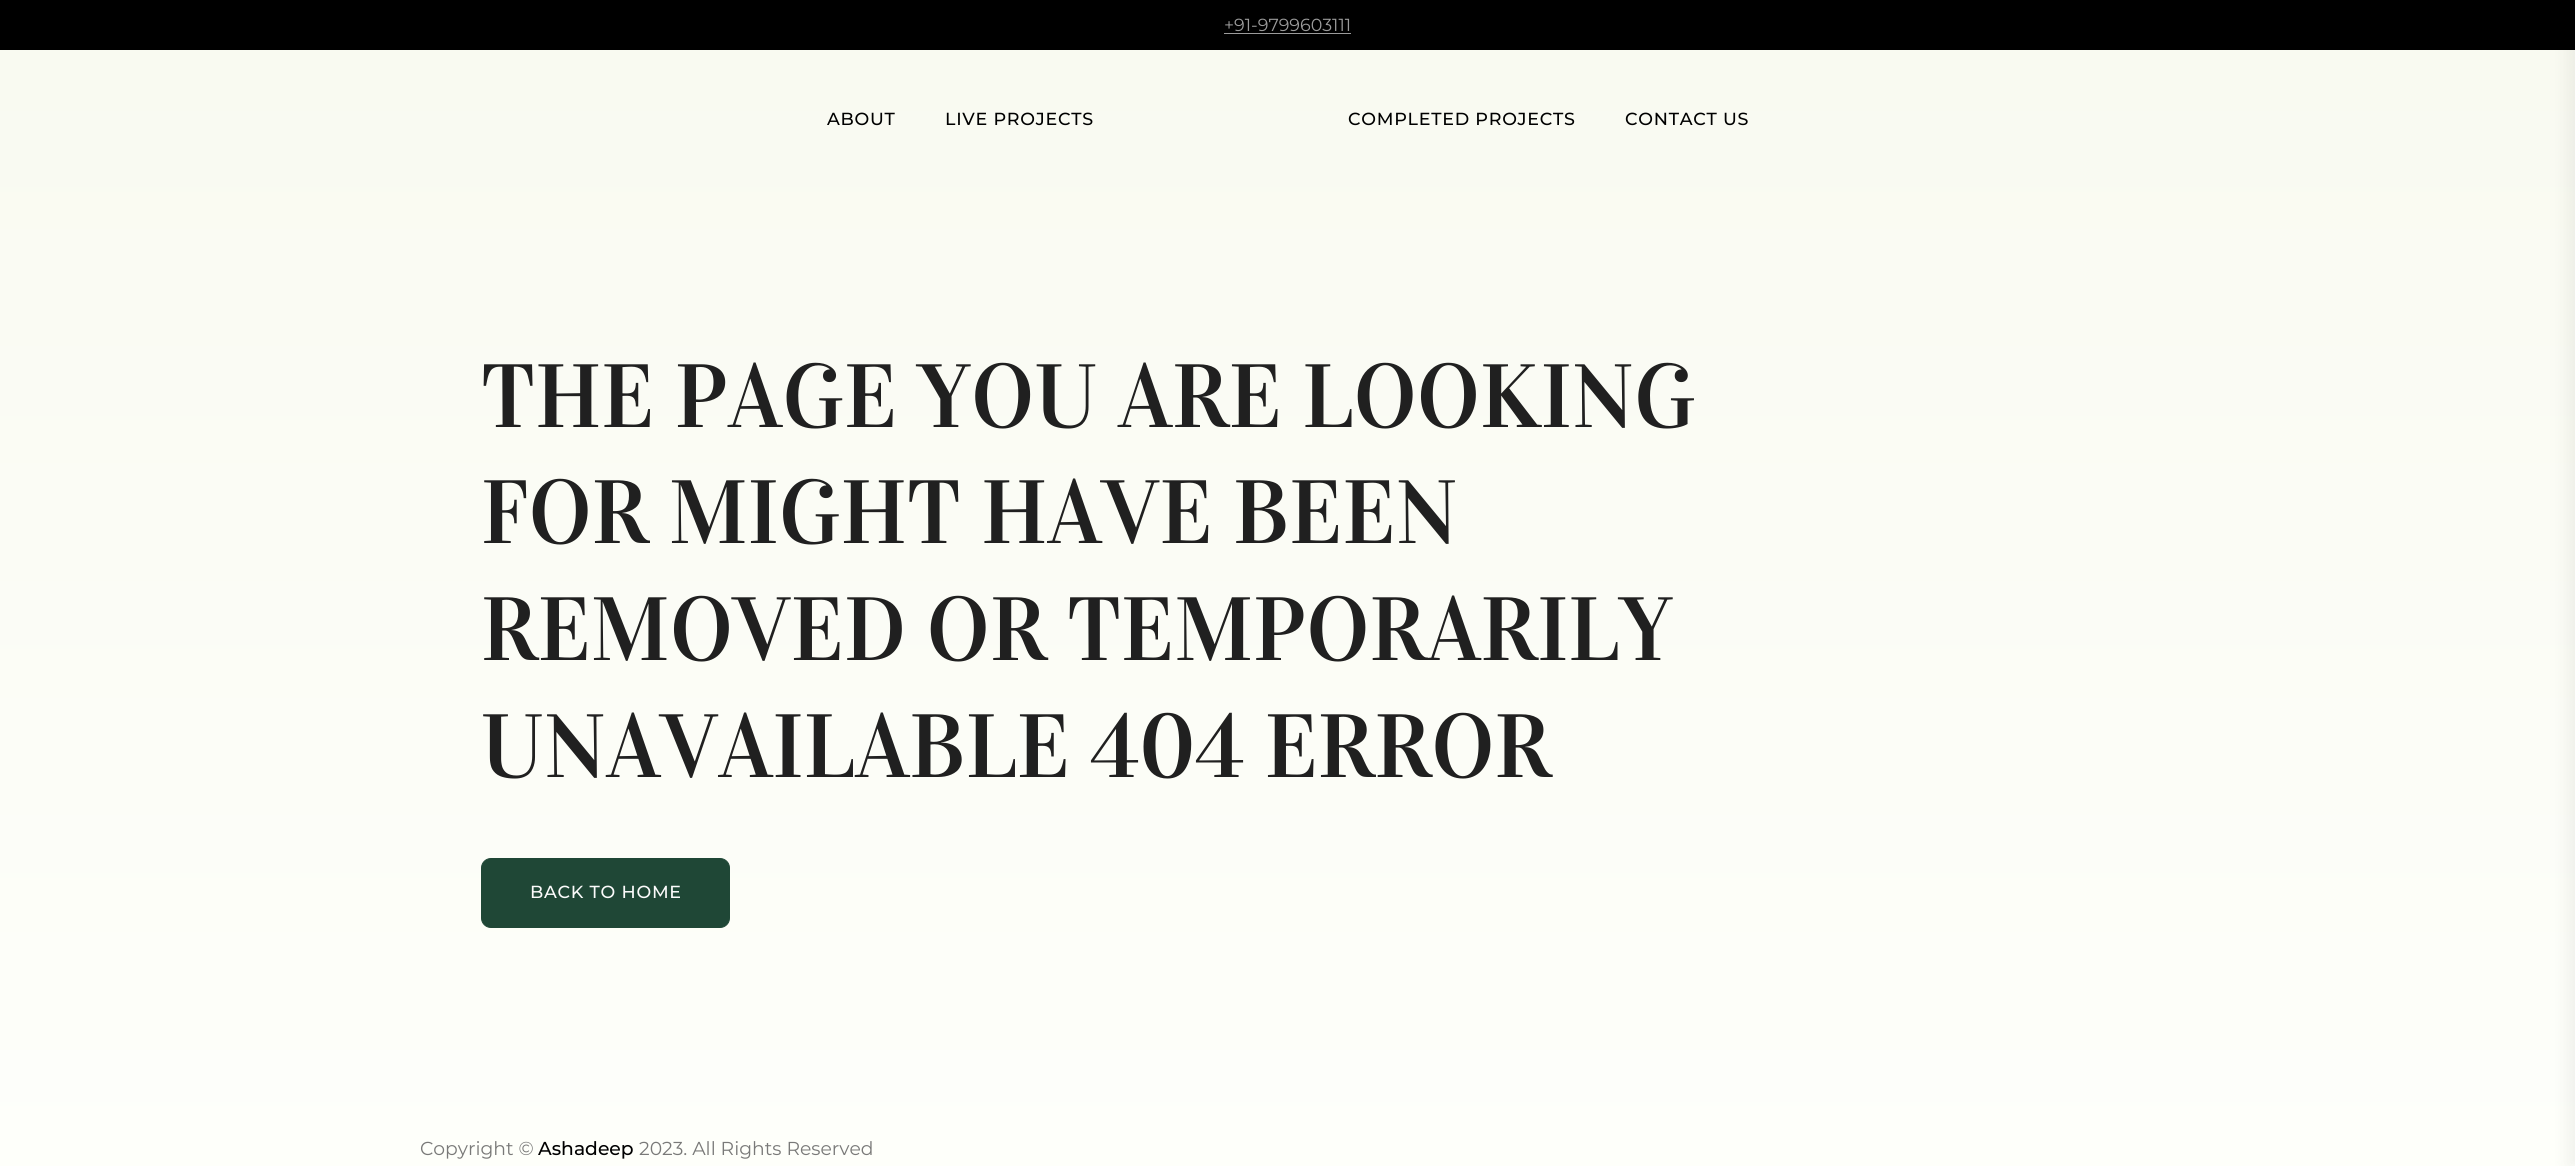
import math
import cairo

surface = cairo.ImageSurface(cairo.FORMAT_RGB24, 2575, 1166)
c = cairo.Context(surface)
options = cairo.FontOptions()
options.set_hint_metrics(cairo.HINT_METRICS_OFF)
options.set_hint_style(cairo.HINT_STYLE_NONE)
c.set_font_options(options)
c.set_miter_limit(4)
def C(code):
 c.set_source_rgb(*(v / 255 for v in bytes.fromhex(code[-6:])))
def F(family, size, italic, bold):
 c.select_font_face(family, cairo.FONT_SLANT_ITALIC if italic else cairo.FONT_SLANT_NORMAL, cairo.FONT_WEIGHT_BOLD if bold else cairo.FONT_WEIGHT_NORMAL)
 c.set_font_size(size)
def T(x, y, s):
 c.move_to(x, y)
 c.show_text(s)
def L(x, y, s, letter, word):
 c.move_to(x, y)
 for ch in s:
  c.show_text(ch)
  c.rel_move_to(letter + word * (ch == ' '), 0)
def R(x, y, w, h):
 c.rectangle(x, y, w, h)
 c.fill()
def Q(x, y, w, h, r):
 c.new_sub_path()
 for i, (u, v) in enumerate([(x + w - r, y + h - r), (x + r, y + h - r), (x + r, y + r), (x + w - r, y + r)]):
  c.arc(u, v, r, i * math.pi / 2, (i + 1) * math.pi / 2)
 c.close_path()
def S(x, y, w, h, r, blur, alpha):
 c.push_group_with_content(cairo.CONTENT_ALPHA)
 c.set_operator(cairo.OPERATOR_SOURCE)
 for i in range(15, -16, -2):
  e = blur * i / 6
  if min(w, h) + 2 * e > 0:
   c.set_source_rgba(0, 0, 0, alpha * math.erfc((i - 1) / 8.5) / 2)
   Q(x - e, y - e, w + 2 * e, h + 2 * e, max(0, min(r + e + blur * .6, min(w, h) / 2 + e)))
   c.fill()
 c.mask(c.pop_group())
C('000000')
c.paint()
F('Montserrat',17.5,0,0)
C('9b9b9b')
T(1224,31,'+91-9799603111')
R(1224,33,127,1)
gradient = cairo.LinearGradient(1288,50,1288,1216)
gradient.add_color_stop_rgba(0,0.976,0.98,0.945,1)
gradient.add_color_stop_rgba(1,0.996,1,0.984,1)
c.set_source(gradient)
R(0,50,2575,1116)
F('Montserrat Medium',17.5,0,0)
C('000000')
L(827,125,'ABOUT',.75,0)
L(945,125,'LIVE PROJECTS',.75,0)
L(1348,125,'COMPLETED PROJECTS',.75,0)
L(1625,125,'CONTACT US',.75,0)
C('000000')
S(2568,0,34,1166,0,9,.06)
F('Vidaloka',90,0,0)
C('202020')
T(481,427,'THE PAGE YOU ARE LOOKING')
T(481,543,'FOR MIGHT HAVE BEEN')
T(481,660,'REMOVED OR TEMPORARILY')
T(481,777,'UNAVAILABLE 404 ERROR')
C('1f4736')
Q(481.5,858.5,248,69,9.5)
c.fill_preserve()
c.set_line_width(1)
c.stroke()
F('Montserrat Medium',17.5,0,0)
C('fbfbfb')
L(530,898,'BACK TO HOME',.75,0)
F('Montserrat',18.75,0,0)
C('797978')
T(420,1155,'Copyright ©')
F('Montserrat Medium',18.75,0,0)
C('000000')
T(538,1155,'Ashadeep')
F('Montserrat',18.75,0,0)
C('797978')
T(639,1155,'2023. All Rights Reserved')
surface.write_to_png('o.png')
